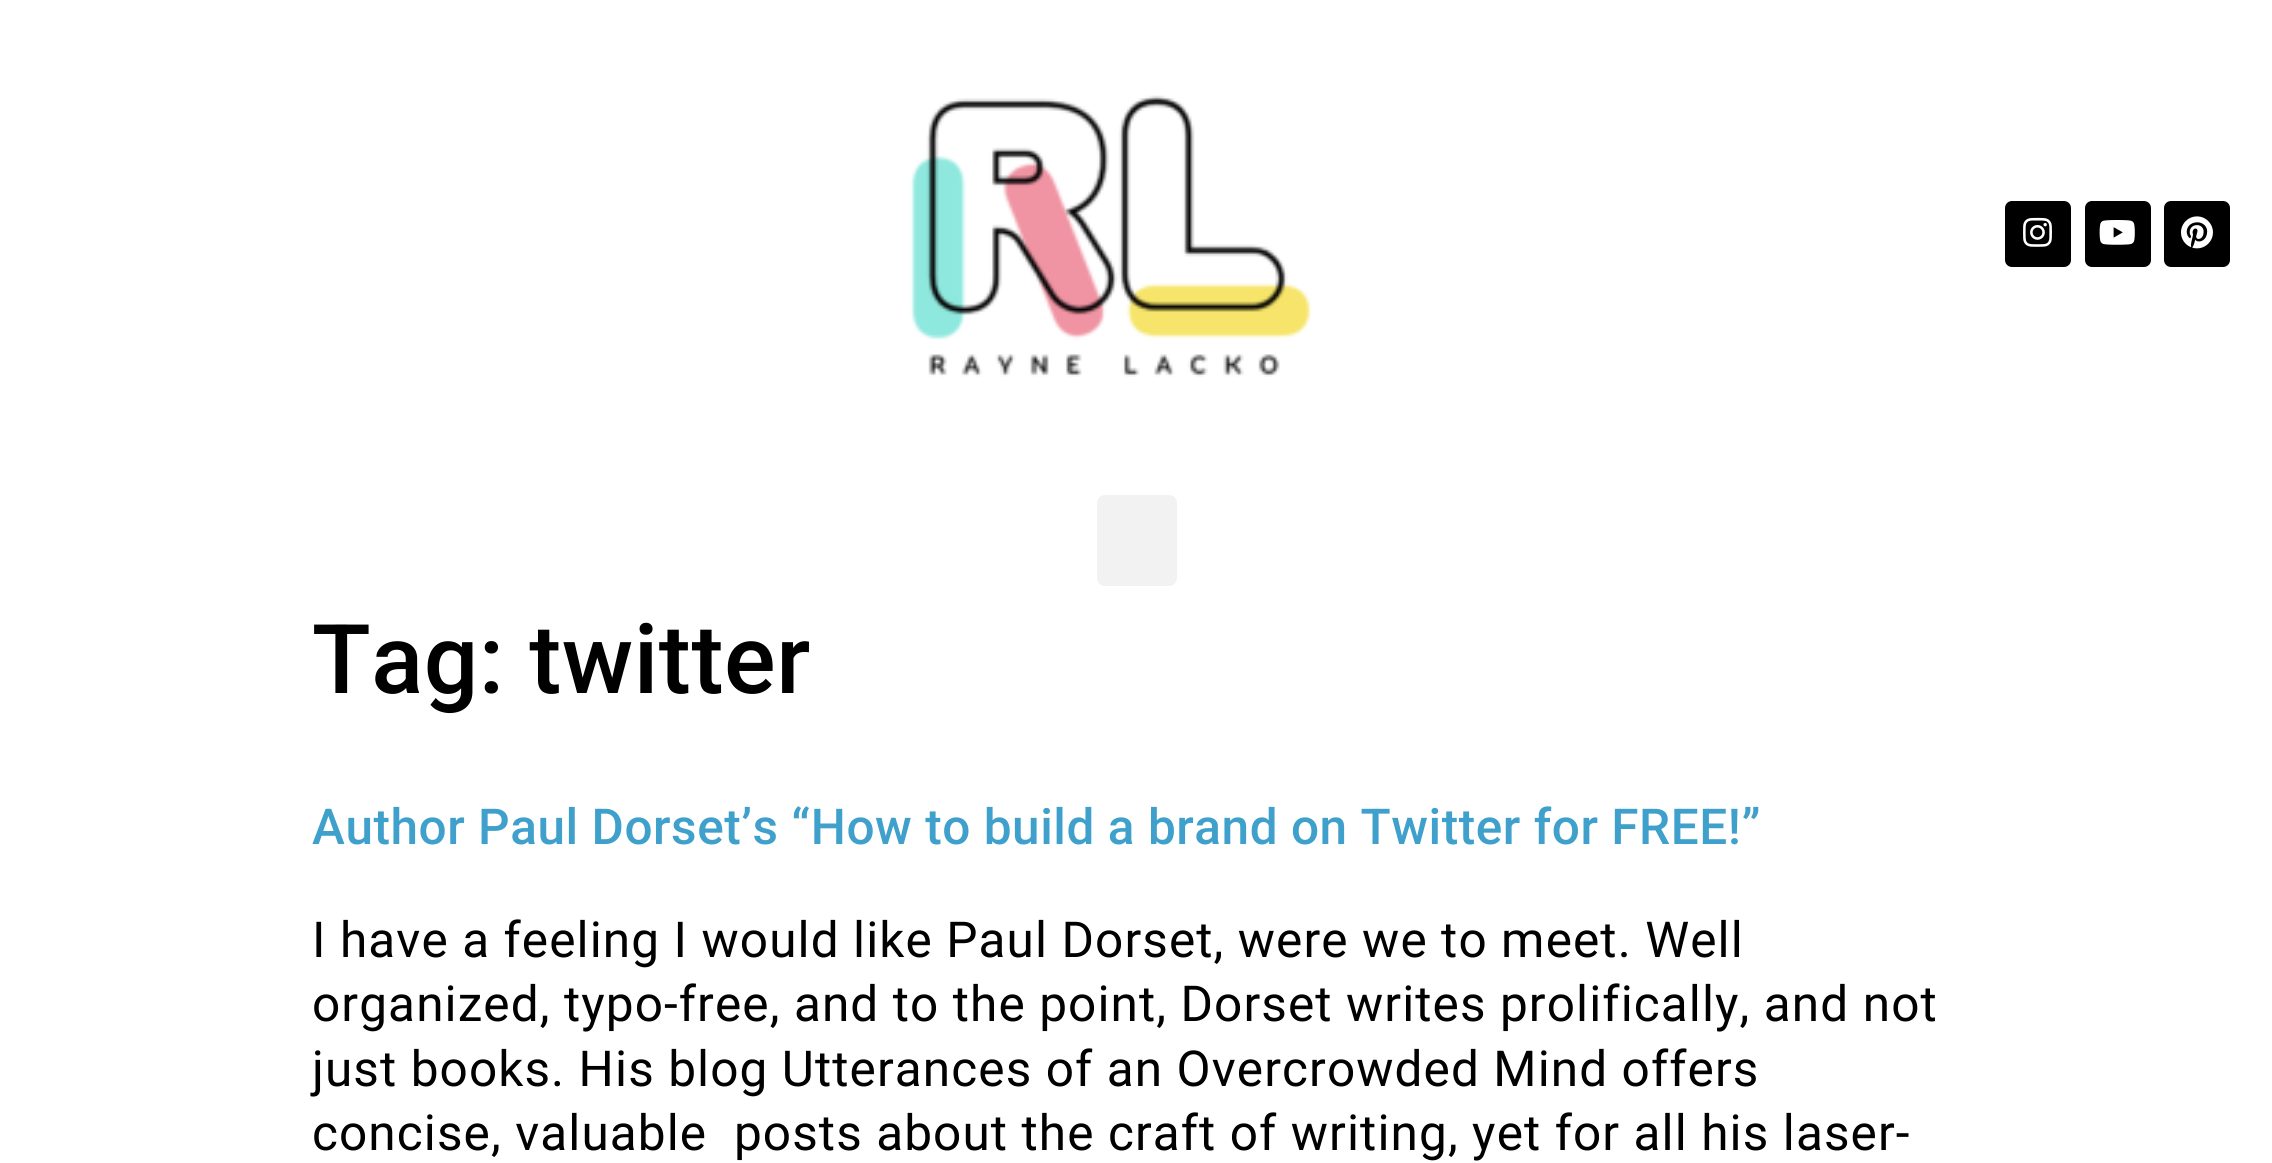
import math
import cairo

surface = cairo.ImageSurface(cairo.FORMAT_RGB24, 2272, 1163)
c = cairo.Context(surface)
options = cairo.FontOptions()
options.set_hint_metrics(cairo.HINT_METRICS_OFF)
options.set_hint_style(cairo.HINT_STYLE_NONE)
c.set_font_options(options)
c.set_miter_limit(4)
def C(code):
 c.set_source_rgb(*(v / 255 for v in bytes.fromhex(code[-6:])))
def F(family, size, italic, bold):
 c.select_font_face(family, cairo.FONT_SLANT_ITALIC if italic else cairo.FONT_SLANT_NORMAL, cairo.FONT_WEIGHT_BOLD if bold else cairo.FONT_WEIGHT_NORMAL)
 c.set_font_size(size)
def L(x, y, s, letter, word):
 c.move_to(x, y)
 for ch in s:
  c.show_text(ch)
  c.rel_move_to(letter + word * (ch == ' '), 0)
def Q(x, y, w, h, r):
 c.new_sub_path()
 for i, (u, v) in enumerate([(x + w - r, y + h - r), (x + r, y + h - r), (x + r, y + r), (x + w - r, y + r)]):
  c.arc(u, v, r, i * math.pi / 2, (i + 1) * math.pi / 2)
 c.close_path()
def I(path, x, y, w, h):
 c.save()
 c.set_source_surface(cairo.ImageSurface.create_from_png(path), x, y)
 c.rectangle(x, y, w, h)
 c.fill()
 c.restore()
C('ffffff')
c.paint()
I('1.png',910,95,402,282)
C('000000')
Q(2005,201,66,66,7)
c.fill()
I('2.png',2023,217,29,30)
Q(2085,201,66,66,7)
c.fill()
I('3.png',2099,220,36,25)
Q(2164,201,66,66,7)
c.fill()
I('4.png',2181,216,32,33)
C('f2f2f2')
Q(1097,495,80,91,8)
c.fill()
F('Roboto Medium',96.25,0,0)
C('000000')
L(312,693,'Tag: twitter',.55,0)
F('Roboto Medium',49.5,0,0)
C('3ea0cb')
L(312,844,'Author Paul Dorset’s “How to build a brand on Twitter for FREE!”',.55,0)
F('Roboto',49.5,0,0)
C('000000')
L(312,957,'I have a feeling I would like Paul Dorset, were we to meet. Well',1.1,0)
L(312,1021,'organized, typo-free, and to the point, Dorset writes prolifically, and not',1.1,0)
L(312,1086,'just books. His blog Utterances of an Overcrowded Mind offers',1.1,0)
L(312,1150,'concise, valuable  posts about the craft of writing, yet for all his laser-',1.1,0)
surface.write_to_png('o.png')
